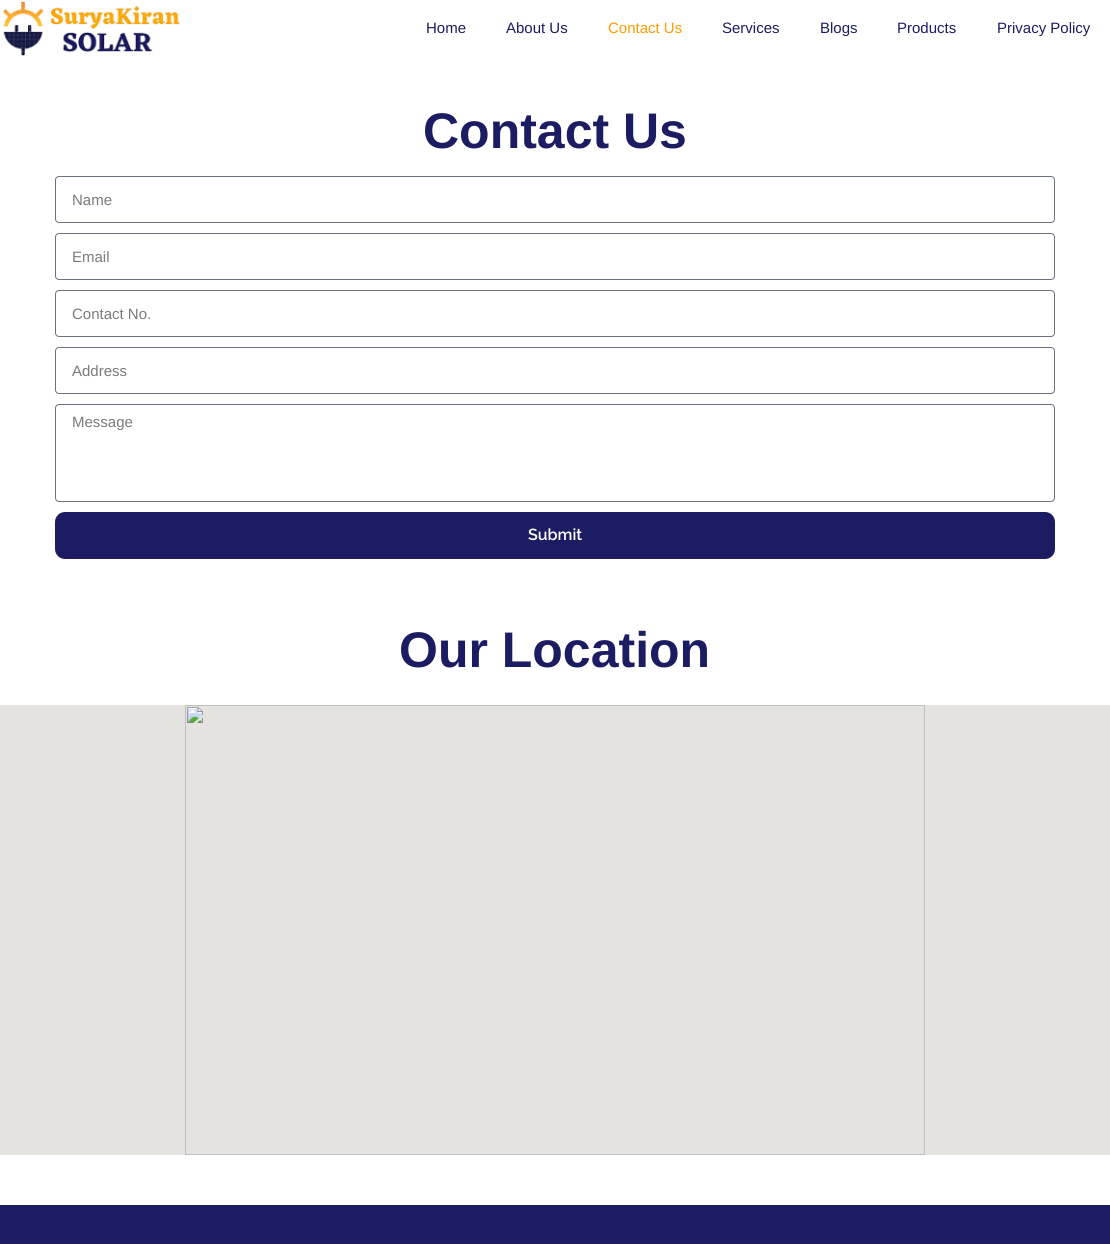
import math
import cairo

surface = cairo.ImageSurface(cairo.FORMAT_RGB24, 1110, 1244)
c = cairo.Context(surface)
options = cairo.FontOptions()
options.set_hint_metrics(cairo.HINT_METRICS_OFF)
options.set_hint_style(cairo.HINT_STYLE_NONE)
c.set_font_options(options)
c.set_miter_limit(4)
def C(code):
 c.set_source_rgb(*(v / 255 for v in bytes.fromhex(code[-6:])))
def F(family, size, italic, bold):
 c.select_font_face(family, cairo.FONT_SLANT_ITALIC if italic else cairo.FONT_SLANT_NORMAL, cairo.FONT_WEIGHT_BOLD if bold else cairo.FONT_WEIGHT_NORMAL)
 c.set_font_size(size)
def T(x, y, s):
 c.move_to(x, y)
 c.show_text(s)
def R(x, y, w, h):
 c.rectangle(x, y, w, h)
 c.fill()
def Q(x, y, w, h, r):
 c.new_sub_path()
 for i, (u, v) in enumerate([(x + w - r, y + h - r), (x + r, y + h - r), (x + r, y + r), (x + w - r, y + r)]):
  c.arc(u, v, r, i * math.pi / 2, (i + 1) * math.pi / 2)
 c.close_path()
def I(path, x, y, w, h):
 c.save()
 c.set_source_surface(cairo.ImageSurface.create_from_png(path), x, y)
 c.rectangle(x, y, w, h)
 c.fill()
 c.restore()
C('ffffff')
c.paint()
I('1.png',3,1,177,55)
F('Liberation Sans',15,0,0)
C('1c1c62')
T(426,33,'Home')
T(506,33,'About Us')
C('ff9c00')
T(608,33,'Contact Us')
C('1c1c62')
T(722,33,'Services')
T(820,33,'Blogs')
T(897,33,'Products')
T(997,33,'Privacy Policy')
F('Liberation Sans',50,0,1)
T(423,148,'Contact Us')
Q(55.5,176.5,999,46,3.5)
C('69727d')
c.set_line_width(1)
c.stroke()
F('Liberation Sans',15,0,0)
C('797a7c')
T(72,205,'Name')
Q(55.5,233.5,999,46,3.5)
C('69727d')
c.stroke()
C('797a7c')
T(72,262,'Email')
Q(55.5,290.5,999,46,3.5)
C('69727d')
c.stroke()
C('797a7c')
T(72,319,'Contact No.')
Q(55.5,347.5,999,46,3.5)
C('69727d')
c.stroke()
C('797a7c')
T(72,376,'Address')
Q(55.5,404.5,999,97,3.5)
C('69727d')
c.stroke()
C('797a7c')
T(72,427,'Message')
C('1c1c62')
Q(55,512,1000,47,10)
c.fill()
F('Raleway SemiBold',16,0,0)
C('ffffff')
T(528,540,'Submit')
F('Liberation Sans',50,0,1)
C('1c1c62')
T(399,667,'Our Location')
I('2.png',0,705,1110,450)
R(0,1205,1110,39)
surface.write_to_png('o.png')
